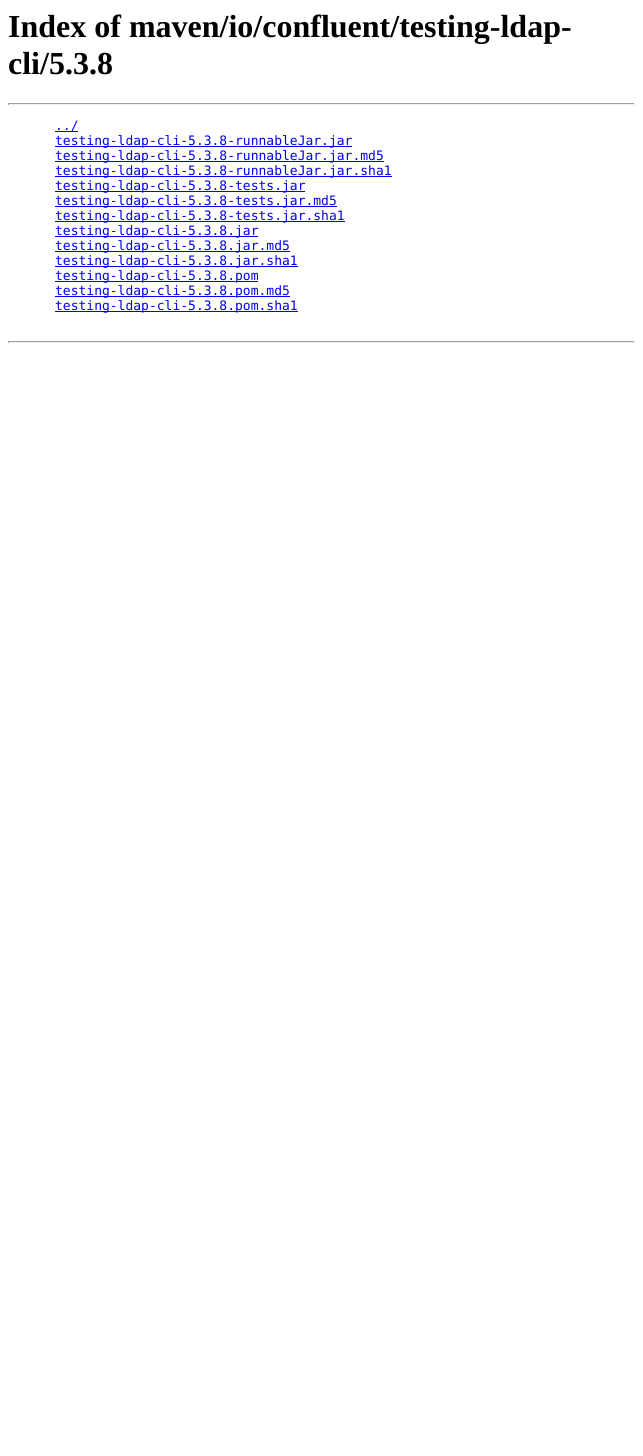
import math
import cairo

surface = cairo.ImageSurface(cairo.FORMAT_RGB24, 643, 1456)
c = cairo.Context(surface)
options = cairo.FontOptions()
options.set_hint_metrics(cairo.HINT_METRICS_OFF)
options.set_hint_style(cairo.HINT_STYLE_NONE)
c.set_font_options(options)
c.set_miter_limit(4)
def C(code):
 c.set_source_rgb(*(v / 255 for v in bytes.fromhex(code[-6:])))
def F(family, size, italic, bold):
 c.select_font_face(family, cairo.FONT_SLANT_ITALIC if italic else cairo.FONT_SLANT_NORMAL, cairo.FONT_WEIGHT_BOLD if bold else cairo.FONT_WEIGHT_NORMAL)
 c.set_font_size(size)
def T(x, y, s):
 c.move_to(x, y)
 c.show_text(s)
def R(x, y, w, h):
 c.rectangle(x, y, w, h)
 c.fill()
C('ffffff')
c.paint()
F('Liberation Serif',32,0,1)
C('000000')
T(8,37,'Index of maven/io/confluent/testing-ldap-')
T(8,74,'cli/5.3.8')
C('9f9f9f')
R(8,103,627,1)
C('eeeeee')
R(634,103,1,2)
R(8,104,627,1)
C('9f9f9f')
R(8,103,1,2)
C('0000ee')
R(55,131,23,1)
F('DejaVu Sans Mono',13,0,0)
T(55,130,'../')
R(55,146,297,1)
T(55,145,'testing-ldap-cli-5.3.8-runnableJar.jar')
R(55,161,329,1)
T(55,160,'testing-ldap-cli-5.3.8-runnableJar.jar.md5')
R(55,176,337,1)
T(55,175,'testing-ldap-cli-5.3.8-runnableJar.jar.sha1')
R(55,191,250,1)
T(55,190,'testing-ldap-cli-5.3.8-tests.jar')
R(55,206,282,1)
T(55,205,'testing-ldap-cli-5.3.8-tests.jar.md5')
R(55,221,290,1)
T(55,220,'testing-ldap-cli-5.3.8-tests.jar.sha1')
R(55,236,203,1)
T(55,235,'testing-ldap-cli-5.3.8.jar')
R(55,251,235,1)
T(55,250,'testing-ldap-cli-5.3.8.jar.md5')
R(55,266,243,1)
T(55,265,'testing-ldap-cli-5.3.8.jar.sha1')
R(55,281,203,1)
T(55,280,'testing-ldap-cli-5.3.8.pom')
R(55,296,235,1)
T(55,295,'testing-ldap-cli-5.3.8.pom.md5')
R(55,311,243,1)
T(55,310,'testing-ldap-cli-5.3.8.pom.sha1')
C('9f9f9f')
R(8,341,627,1)
C('eeeeee')
R(634,341,1,2)
R(8,342,627,1)
C('9f9f9f')
R(8,341,1,2)
surface.write_to_png('o.png')
